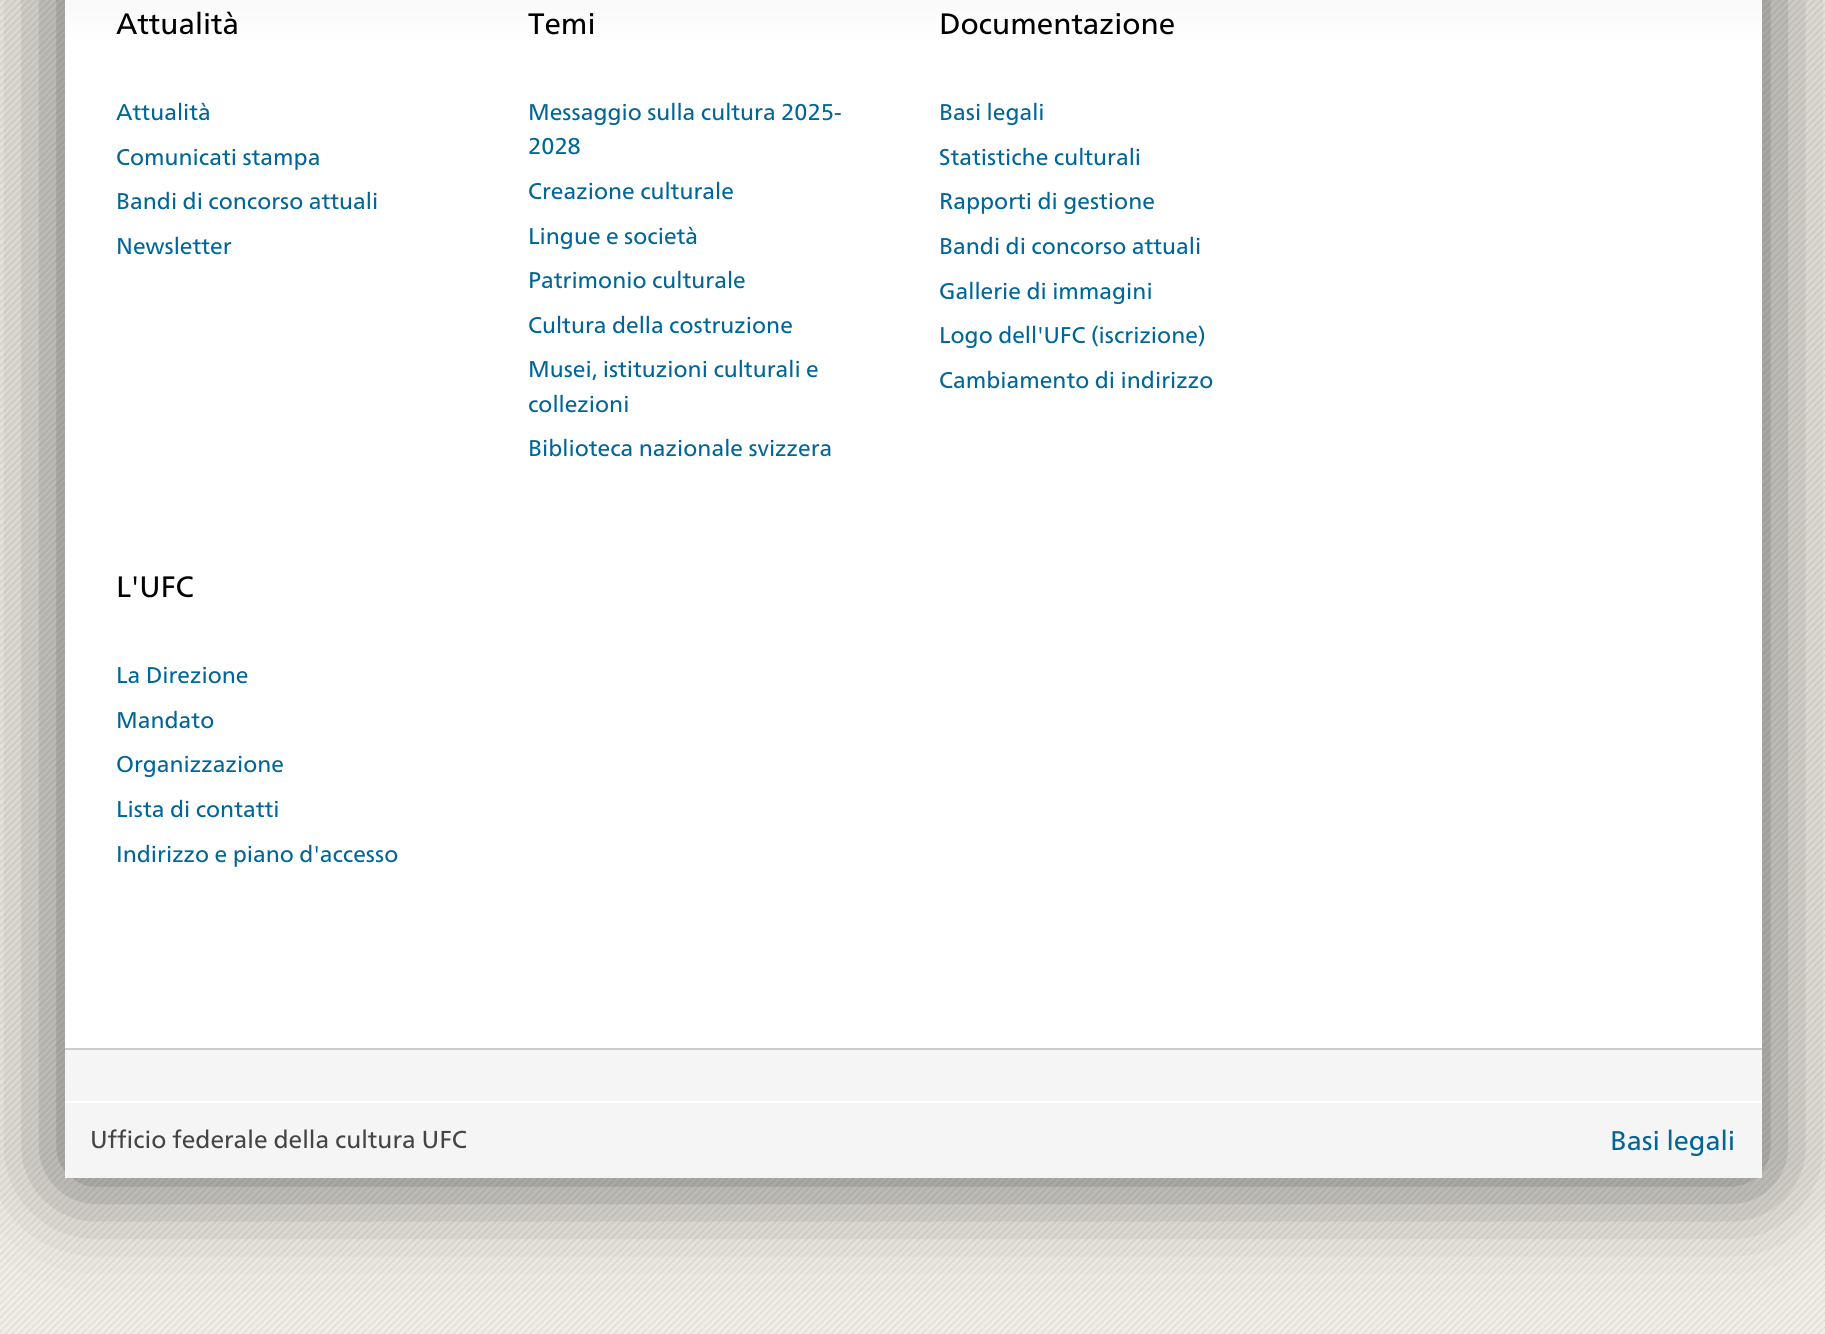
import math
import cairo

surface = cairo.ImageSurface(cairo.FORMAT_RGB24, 1825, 1334)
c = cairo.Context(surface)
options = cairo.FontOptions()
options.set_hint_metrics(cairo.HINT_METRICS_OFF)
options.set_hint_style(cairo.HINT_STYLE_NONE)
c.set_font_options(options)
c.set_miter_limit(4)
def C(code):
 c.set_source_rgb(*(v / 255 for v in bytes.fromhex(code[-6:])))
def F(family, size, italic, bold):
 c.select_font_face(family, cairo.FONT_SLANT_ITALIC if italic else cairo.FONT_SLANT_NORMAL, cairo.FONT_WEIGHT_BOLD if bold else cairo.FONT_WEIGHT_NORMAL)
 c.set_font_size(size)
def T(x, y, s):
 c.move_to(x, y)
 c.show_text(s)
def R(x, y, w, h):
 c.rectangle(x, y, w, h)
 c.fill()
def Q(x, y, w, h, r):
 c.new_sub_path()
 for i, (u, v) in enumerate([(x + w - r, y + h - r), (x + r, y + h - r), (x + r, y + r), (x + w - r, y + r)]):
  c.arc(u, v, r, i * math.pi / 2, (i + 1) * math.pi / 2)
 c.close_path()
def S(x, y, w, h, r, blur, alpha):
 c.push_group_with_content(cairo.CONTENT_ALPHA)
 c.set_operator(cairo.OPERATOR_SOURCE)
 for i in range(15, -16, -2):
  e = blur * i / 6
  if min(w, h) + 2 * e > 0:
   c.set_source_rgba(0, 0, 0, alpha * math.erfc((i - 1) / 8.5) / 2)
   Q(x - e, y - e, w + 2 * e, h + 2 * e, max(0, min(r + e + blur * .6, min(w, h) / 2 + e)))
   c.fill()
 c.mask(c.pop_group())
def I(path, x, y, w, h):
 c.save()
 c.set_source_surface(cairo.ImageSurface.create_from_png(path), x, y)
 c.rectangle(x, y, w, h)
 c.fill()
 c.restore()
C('ffffff')
c.paint()
I('1.png',0,0,1825,1334)
C('000000')
S(65,-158,1697,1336,0,52.5,.6)
C('f5f5f5')
R(65,1050,1697,128)
gradient = cairo.LinearGradient(914,-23,914,1048)
gradient.add_color_stop_rgba(0,0.961,0.961,0.961,1)
gradient.add_color_stop_rgba(.06,1,1,1,1)
c.set_source(gradient)
R(65,0,1697,1048)
C('cccccc')
R(65,1048,1697,2)
F('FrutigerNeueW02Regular',29.5,0,0)
C('000000')
T(116,34,'Attualità')
F('FrutigerNeueW02Regular',22.75,0,0)
C('006699')
T(116,120,'Attualità')
T(116,165,'Comunicati stampa')
T(116,209,'Bandi di concorso attuali')
T(116,254,'Newsletter')
F('FrutigerNeueW02Regular',29.5,0,0)
C('000000')
T(528,34,'Temi')
F('FrutigerNeueW02Regular',22.75,0,0)
C('006699')
T(528,120,'Messaggio sulla cultura 2025-')
T(528,154,'2028')
T(528,199,'Creazione culturale')
T(528,244,'Lingue e società')
T(528,288,'Patrimonio culturale')
T(528,333,'Cultura della costruzione')
T(528,377,'Musei, istituzioni culturali e')
T(528,412,'collezioni')
T(528,456,'Biblioteca nazionale svizzera')
F('FrutigerNeueW02Regular',29.5,0,0)
C('000000')
T(939,34,'Documentazione')
F('FrutigerNeueW02Regular',22.75,0,0)
C('006699')
T(939,120,'Basi legali')
T(939,165,'Statistiche culturali')
T(939,209,'Rapporti di gestione')
T(939,254,'Bandi di concorso attuali')
T(939,299,'Gallerie di immagini')
T(939,343,'Logo dell\'UFC (iscrizione)')
T(939,388,'Cambiamento di indirizzo')
F('FrutigerNeueW02Regular',29.5,0,0)
C('000000')
T(116,597,'L\'UFC')
F('FrutigerNeueW02Regular',22.75,0,0)
C('006699')
T(116,683,'La Direzione')
T(116,728,'Mandato')
T(116,772,'Organizzazione')
T(116,817,'Lista di contatti')
T(116,862,'Indirizzo e piano d\'accesso')
C('ffffff')
R(65,1101,1697,2)
F('FrutigerNeueW02Regular',24.5,0,0)
C('454545')
T(90,1148,'Ufficio federale della cultura UFC')
F('FrutigerNeueW02Regular',27,0,0)
C('006699')
T(1610,1150,'Basi legali')
surface.write_to_png('o.png')
